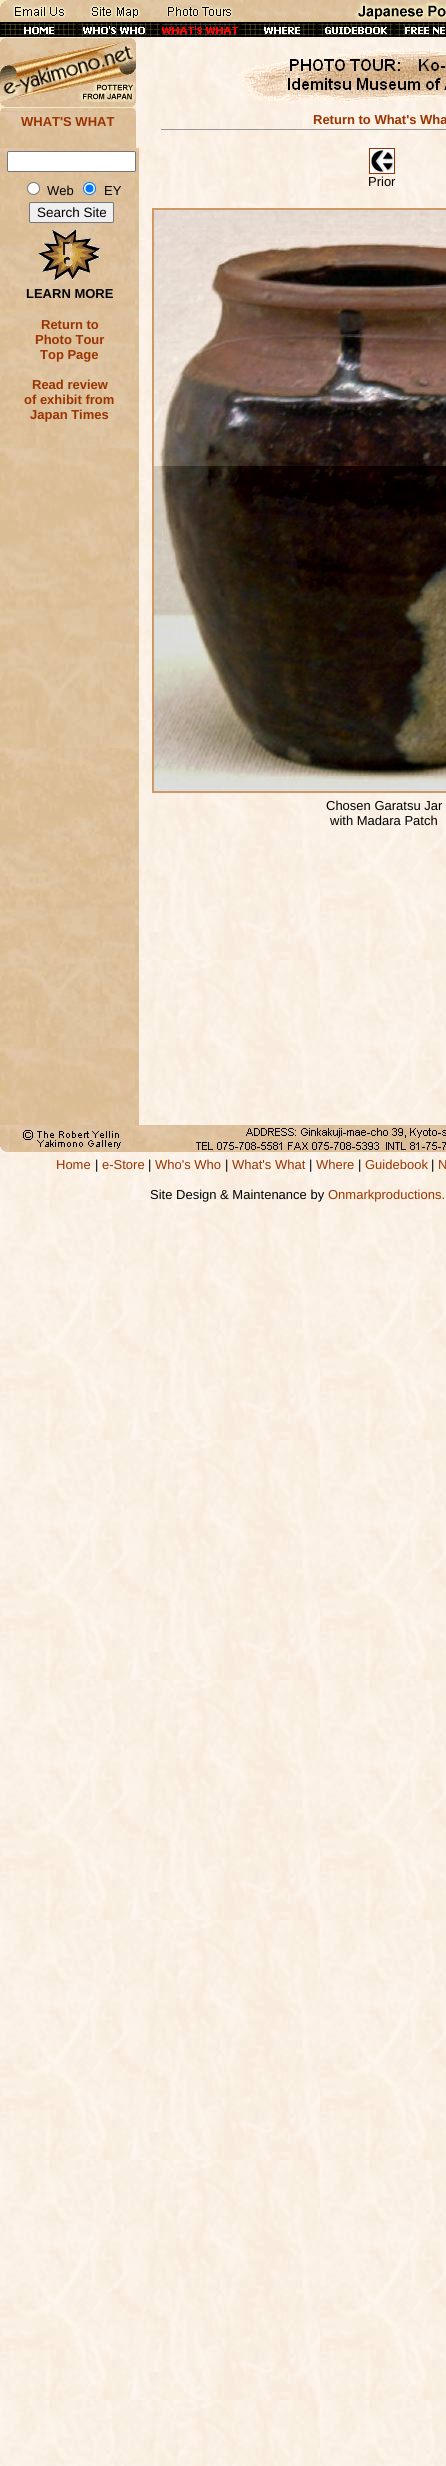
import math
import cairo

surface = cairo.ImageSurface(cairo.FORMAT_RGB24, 446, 2466)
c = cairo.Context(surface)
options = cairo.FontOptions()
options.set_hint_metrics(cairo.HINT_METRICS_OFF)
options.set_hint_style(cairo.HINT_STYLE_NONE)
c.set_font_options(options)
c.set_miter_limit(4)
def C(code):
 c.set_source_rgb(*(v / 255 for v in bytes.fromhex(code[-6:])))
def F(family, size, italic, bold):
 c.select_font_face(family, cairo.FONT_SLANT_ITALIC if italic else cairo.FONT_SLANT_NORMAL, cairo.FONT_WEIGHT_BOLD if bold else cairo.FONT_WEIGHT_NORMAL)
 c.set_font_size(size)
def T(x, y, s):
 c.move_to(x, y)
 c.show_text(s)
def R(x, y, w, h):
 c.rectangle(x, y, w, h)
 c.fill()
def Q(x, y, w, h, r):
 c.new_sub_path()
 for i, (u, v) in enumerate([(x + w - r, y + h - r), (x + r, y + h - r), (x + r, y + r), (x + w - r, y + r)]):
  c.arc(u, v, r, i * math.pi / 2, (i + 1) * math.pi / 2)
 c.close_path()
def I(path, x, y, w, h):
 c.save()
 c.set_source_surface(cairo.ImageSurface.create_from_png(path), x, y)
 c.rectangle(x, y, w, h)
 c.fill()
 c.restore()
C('ffffff')
c.paint()
I('1.png',0,37,446,2429)
I('2.png',0,0,446,22)
C('000000')
R(0,22,317,15)
I('3.png',0,23,76,13)
I('4.png',77,22,77,15)
I('5.png',154,22,86,15)
I('6.png',240,23,76,13)
I('7.png',317,22,77,15)
I('8.png',394,22,52,15)
I('9.png',0,37,136,75)
I('10.png',238,48,208,55)
I('11.png',0,112,136,36)
F('Liberation Sans',13,0,1)
C('993300')
T(21,126,'WHAT\'S WHAT')
T(313,124,'Return to What\'s Wha')
C('969696')
R(161,129,285,1)
I('12.png',0,148,139,977)
C('ffffff')
Q(7.5,151.5,128,20,1.5)
c.fill_preserve()
C('767676')
c.set_line_width(1)
c.stroke()
C('ffffff')
c.arc(33.5,188.5,6,0,2 * math.pi)
c.fill_preserve()
C('767676')
c.stroke()
F('Liberation Sans',13,0,0)
C('000000')
T(47,195,'Web')
C('ffffff')
c.new_path()
c.arc(89.5,188.5,6,0,2 * math.pi)
c.fill_preserve()
C('0075ff')
c.stroke()
c.arc(89.5,188.5,4,0,2 * math.pi)
c.fill()
C('000000')
T(104,195,'EY')
C('efefef')
Q(29.5,202.5,84,20,1.5)
c.fill_preserve()
C('767676')
c.stroke()
F('Liberation Sans',13.5,0,0)
C('000000')
T(37,217,'Search Site')
I('13.png',38,229,62,52)
F('Liberation Sans',13,0,1)
T(26,298,'LEARN MORE')
C('993300')
T(41,329,'Return to')
T(35,344,'Photo Tour')
T(40,359,'Top Page')
T(32,389,'Read review')
T(24,404,'of exhibit from')
T(30,419,'Japan Times')
c.rectangle(369.5,148.5,25,25)
c.stroke()
I('14.png',370,149,24,24)
F('Liberation Sans',13,0,0)
C('000000')
T(368,186,'Prior')
c.rectangle(152.5,208.5,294,584)
C('cc9966')
c.stroke()
c.rectangle(153.5,209.5,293,582)
c.stroke()
I('15.png',154,210,292,581)
C('000000')
T(326,810,'Chosen Garatsu Jar')
T(330,825,'with Madara Patch')
I('16.png',0,1125,10,27)
I('17.png',0,1135,9,17)
I('18.png',10,1125,123,27)
I('19.png',23,1130,98,19)
I('20.png',133,1125,313,27)
I('21.png',196,1128,250,22)
C('993300')
T(56,1169,'Home')
C('000000')
T(95,1169,'|')
C('993300')
T(102,1169,'e-Store')
C('000000')
T(148,1169,'|')
C('993300')
T(155,1169,'Who\'s Who')
C('000000')
T(225,1169,'|')
C('993300')
T(232,1169,'What\'s What')
C('000000')
T(309,1169,'|')
C('993300')
T(316,1169,'Where')
C('000000')
T(358,1169,'|')
C('993300')
T(365,1169,'Guidebook')
C('000000')
T(431,1169,'|')
C('993300')
T(438,1169,'N')
C('000000')
T(150,1199,'Site Design & Maintenance by')
C('993300')
T(328,1199,'Onmarkproductions.')
surface.write_to_png('o.png')
